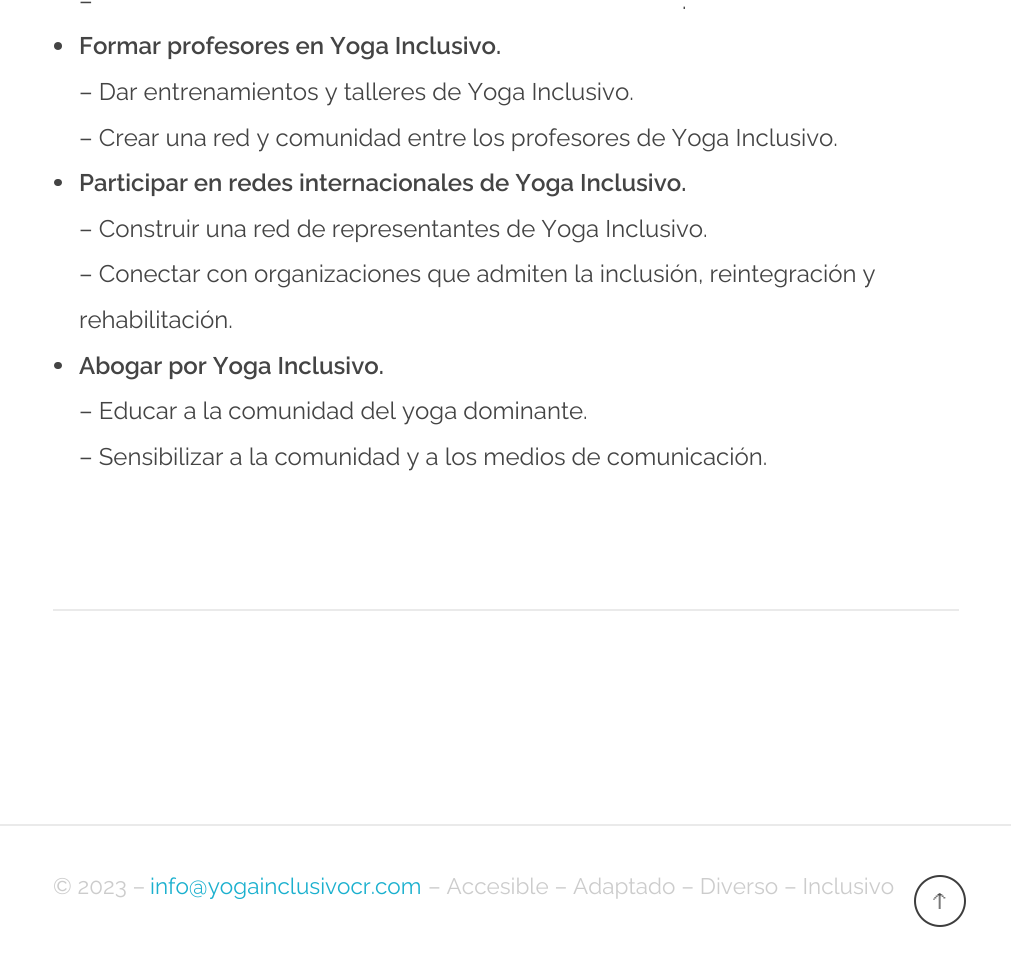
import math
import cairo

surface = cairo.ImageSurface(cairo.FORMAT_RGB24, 1011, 972)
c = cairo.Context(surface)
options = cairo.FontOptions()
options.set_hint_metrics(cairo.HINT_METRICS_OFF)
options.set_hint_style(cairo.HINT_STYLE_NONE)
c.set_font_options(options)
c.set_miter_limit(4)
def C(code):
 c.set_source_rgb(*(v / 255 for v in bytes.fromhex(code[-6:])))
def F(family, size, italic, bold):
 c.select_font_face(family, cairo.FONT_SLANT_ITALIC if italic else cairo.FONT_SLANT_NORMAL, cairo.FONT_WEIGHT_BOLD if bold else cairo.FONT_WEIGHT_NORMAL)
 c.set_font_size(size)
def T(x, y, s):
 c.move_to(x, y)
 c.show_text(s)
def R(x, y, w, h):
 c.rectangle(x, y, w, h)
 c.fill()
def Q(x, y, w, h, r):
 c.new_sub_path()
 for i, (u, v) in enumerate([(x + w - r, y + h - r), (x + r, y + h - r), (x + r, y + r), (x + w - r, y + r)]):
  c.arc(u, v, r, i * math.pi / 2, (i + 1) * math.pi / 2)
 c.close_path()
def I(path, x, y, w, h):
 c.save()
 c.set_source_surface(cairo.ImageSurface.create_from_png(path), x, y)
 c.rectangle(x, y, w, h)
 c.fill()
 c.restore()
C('ffffff')
c.paint()
F('Raleway',24,0,0)
C('444444')
T(79,9,'–')
T(682,9,'.')
c.new_path()
c.arc(58,46,4,0,2 * math.pi)
c.fill()
F('Raleway SemiBold',24,0,0)
T(79,54,'Formar profesores en Yoga Inclusivo.')
F('Raleway',24,0,0)
T(79,100,'– Dar entrenamientos y talleres de Yoga Inclusivo.')
T(79,146,'– Crear una red y comunidad entre los profesores de Yoga Inclusivo.')
Q(54,179,8,7,3.5)
c.fill()
F('Raleway SemiBold',24,0,0)
T(79,191,'Participar en redes internacionales de Yoga Inclusivo.')
F('Raleway',24,0,0)
T(79,237,'– Construir una red de representantes de Yoga Inclusivo.')
T(79,282,'– Conectar con organizaciones que admiten la inclusión, reintegración y')
T(79,328,'rehabilitación.')
Q(54,362,8,7,3.5)
c.fill()
F('Raleway SemiBold',24,0,0)
T(79,374,'Abogar por Yoga Inclusivo.')
F('Raleway',24,0,0)
T(79,419,'– Educar a la comunidad del yoga dominante.')
T(79,465,'– Sensibilizar a la comunidad y a los medios de comunicación.')
C('eaeaea')
R(53,609,906,2)
R(0,824,1011,2)
F('Raleway',22.5,0,0)
C('cccccc')
T(53,894,'© 2023 –')
C('1bb0ce')
T(150,894,'info@yogainclusivocr.com')
C('cccccc')
T(428,894,'– Accesible – Adaptado – Diverso – Inclusivo')
c.new_path()
c.arc(940,901,25,0,2 * math.pi)
C('3d3d3d')
c.stroke()
I('1.png',933,893,13,16)
surface.write_to_png('o.png')
